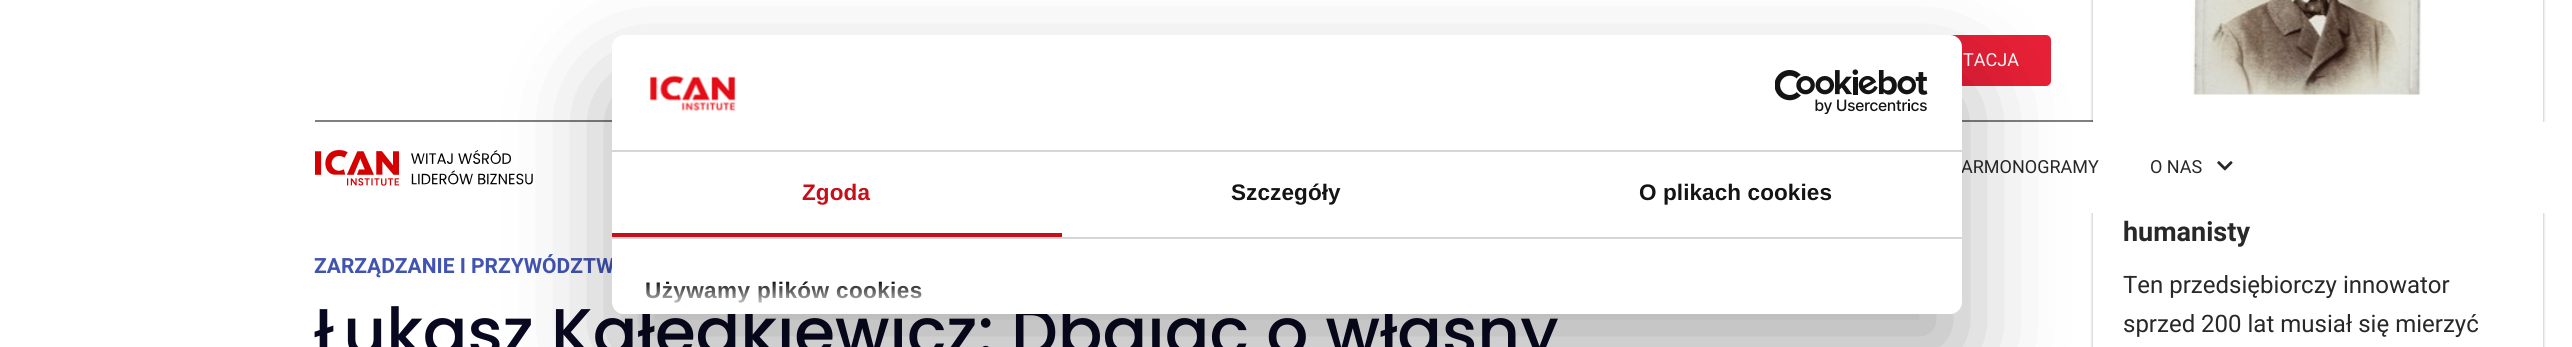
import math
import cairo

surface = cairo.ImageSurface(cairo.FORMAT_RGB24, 2572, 347)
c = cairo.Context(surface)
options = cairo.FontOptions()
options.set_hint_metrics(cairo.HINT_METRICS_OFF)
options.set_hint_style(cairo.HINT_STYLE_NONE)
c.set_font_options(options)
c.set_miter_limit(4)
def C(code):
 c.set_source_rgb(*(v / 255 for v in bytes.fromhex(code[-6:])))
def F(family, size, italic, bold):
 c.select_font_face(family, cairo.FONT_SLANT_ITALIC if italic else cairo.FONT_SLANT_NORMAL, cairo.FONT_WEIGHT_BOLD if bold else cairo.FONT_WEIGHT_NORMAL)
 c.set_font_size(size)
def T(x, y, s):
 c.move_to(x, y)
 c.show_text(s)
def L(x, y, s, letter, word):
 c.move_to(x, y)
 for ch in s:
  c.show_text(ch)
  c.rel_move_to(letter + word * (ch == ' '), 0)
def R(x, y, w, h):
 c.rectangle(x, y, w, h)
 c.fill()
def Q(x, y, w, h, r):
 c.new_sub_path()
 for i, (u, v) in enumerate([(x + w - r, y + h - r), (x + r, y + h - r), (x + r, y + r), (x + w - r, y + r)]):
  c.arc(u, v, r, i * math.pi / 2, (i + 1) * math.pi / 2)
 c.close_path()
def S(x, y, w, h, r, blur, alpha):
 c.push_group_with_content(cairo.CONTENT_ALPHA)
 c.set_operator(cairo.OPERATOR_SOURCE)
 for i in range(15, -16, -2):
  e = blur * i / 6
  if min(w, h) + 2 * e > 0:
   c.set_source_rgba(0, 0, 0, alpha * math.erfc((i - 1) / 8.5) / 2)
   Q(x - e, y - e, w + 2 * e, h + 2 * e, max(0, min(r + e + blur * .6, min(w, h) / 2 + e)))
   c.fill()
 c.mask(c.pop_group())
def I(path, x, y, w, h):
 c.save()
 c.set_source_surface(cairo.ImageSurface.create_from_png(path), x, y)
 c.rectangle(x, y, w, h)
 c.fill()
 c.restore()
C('ffffff')
c.paint()
C('808080')
R(315,120,1778,2)
C('e62037')
Q(1759,36,291,49,4)
c.fill_preserve()
c.stroke()
F('Roboto',18,0,0)
C('ffffff')
T(1963,66,'TACJA')
C('000000')
S(2093,-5,450,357,0,1.5,.24)
S(2093,-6,450,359,0,2,.12)
C('ffffff')
R(2093,0,450,347)
R(2090,122,456,91)
I('1.png',315,150,84,36)
I('2.png',411,150,122,35)
C('282828')
T(1961,173,'ARMONOGRAMY')
T(2150,173,'O NAS')
I('3.png',2217,161,16,10)
F('Roboto',21,0,1)
C('4154b1')
T(314,273,'ZARZĄDZANIE I PRZYWÓDZTW')
F('Poppins Medium',66,0,0)
C('080920')
T(314,355,'Łukasz Kałędkiewicz: Dbając o własny')
I('4.png',2191,0,230,95)
F('Roboto',27,0,1)
C('282828')
T(2123,241,'humanisty')
F('Roboto',24,0,0)
T(2123,293,'Ten przedsiębiorczy innowator')
T(2123,332,'sprzed 200 lat musiał się mierzyć')
C('000000')
S(612,83,1350,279,12,51,.3)
C('ffffff')
Q(612,35,1350,279,12)
c.fill()
C('d6d6d6')
R(612,150,1350,2)
I('5.png',650,75,86,37)
I('6.png',1775,69,153,45)
R(612,237,1350,2)
C('c70f19')
R(612,233,450,4)
F('Liberation Sans',22.5,0,1)
L(802,200,'Zgoda',.1,0)
C('141414')
L(1231,200,'Szczegóły',.1,0)
L(1639,200,'O plikach cookies',.1,0)
L(645,298,'Używamy plików cookies',.4,0)
c.save()
Q(612,35,1350,279,12)
c.clip()
gradient = cairo.LinearGradient(1271,327,1271,282)
gradient.add_color_stop_rgba(0,1,1,1,1)
gradient.add_color_stop_rgba(.5,1,1,1,.8)
gradient.add_color_stop_rgba(1,1,1,1,0)
c.set_source(gradient)
R(614,283,1315,31)
c.restore()
C('ffffff')
R(1951,313,2,1)
surface.write_to_png('o.png')
